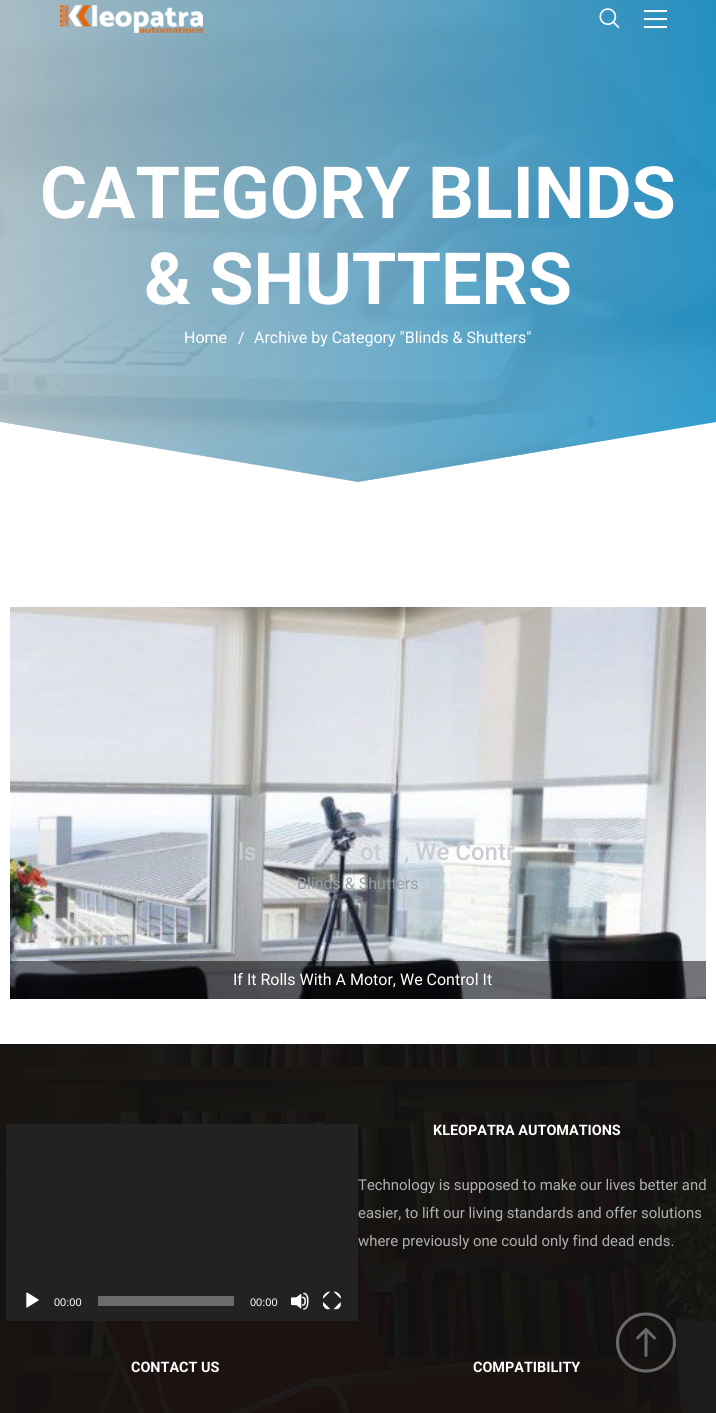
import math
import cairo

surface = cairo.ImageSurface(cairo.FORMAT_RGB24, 716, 1413)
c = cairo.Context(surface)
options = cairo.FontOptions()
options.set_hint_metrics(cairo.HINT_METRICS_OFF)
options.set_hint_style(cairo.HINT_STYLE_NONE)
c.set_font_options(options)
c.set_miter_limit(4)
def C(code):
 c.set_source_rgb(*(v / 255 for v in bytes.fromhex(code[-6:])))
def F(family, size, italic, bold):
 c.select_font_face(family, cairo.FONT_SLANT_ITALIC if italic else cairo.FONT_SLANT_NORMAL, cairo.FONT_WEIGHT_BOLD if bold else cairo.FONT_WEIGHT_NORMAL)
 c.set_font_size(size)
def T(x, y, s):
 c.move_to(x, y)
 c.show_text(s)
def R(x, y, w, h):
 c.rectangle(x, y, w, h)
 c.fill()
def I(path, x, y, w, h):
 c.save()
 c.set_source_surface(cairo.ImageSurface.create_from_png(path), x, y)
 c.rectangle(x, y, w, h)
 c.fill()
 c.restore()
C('ffffff')
c.paint()
I('3.png',0,0,716,482)
gradient = cairo.LinearGradient(0,262,716,262)
gradient.add_color_stop_rgba(0,0.753,0.855,0.898,.9)
gradient.add_color_stop_rgba(.5,0.42,0.745,0.898,.9)
gradient.add_color_stop_rgba(1,0.012,0.612,0.898,.9)
c.set_source(gradient)
c.new_path()
c.move_to(0,-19)
c.line_to(0,422)
c.line_to(358,482)
c.line_to(716,422)
c.line_to(716,-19)
c.close_path()
c.fill()
I('4.png',0,0,716,482)
I('1.png',60,5,143,28)
I('2.png',599,8,21,21)
C('ffffff')
R(644,18,23,2)
R(644,10,23,2)
R(644,26,23,2)
F('Roboto',72,0,1)
T(40,218,'CATEGORY BLINDS')
T(144,304,'& SHUTTERS')
F('Roboto',16,0,0)
T(184,343,'Home')
T(238,343,'/')
T(254,343,'Archive by Category "Blinds & Shutters"')
I('5.png',10,607,696,392)
F('Roboto Medium',24,0,0)
C('c9cdd2')
T(238,860,'ls')
T(360,860,'ot')
T(404,860,', We Contr')
F('Roboto',16,0,0)
C('979da0')
T(297,889,'Blinds & Shutters')
c.set_source_rgba(0,0,0,0.5)
R(10,961,696,38)
C('ffffff')
T(233,985,'If It Rolls With A Motor, We Control It')
I('6.png',0,1044,716,369)
F('Roboto',14.4,0,1)
T(433,1135,'KLEOPATRA AUTOMATIONS')
F('Roboto',14.9,0,0)
C('b0b0b0')
T(358,1190,'Technology is supposed to make our lives better and')
T(358,1218,'easier, to lift our living standards and offer solutions')
T(358,1246,'where previously one could only find dead ends.')
C('222222')
R(6,1124,352,197)
I('7.png',26,1292,13,16)
F('Liberation Sans',11,0,0)
C('ffffff')
T(54,1306,'00:00')
C('6b6b6b')
R(98,1296,136,10)
C('ffffff')
T(250,1306,'00:00')
I('8.png',291,1292,18,18)
I('9.png',323,1291,18,19)
F('Roboto',14.4,0,1)
T(131,1372,'CONTACT US')
T(473,1372,'COMPATIBILITY')
I('10.png',616,1312,60,61)
surface.write_to_png('o.png')
